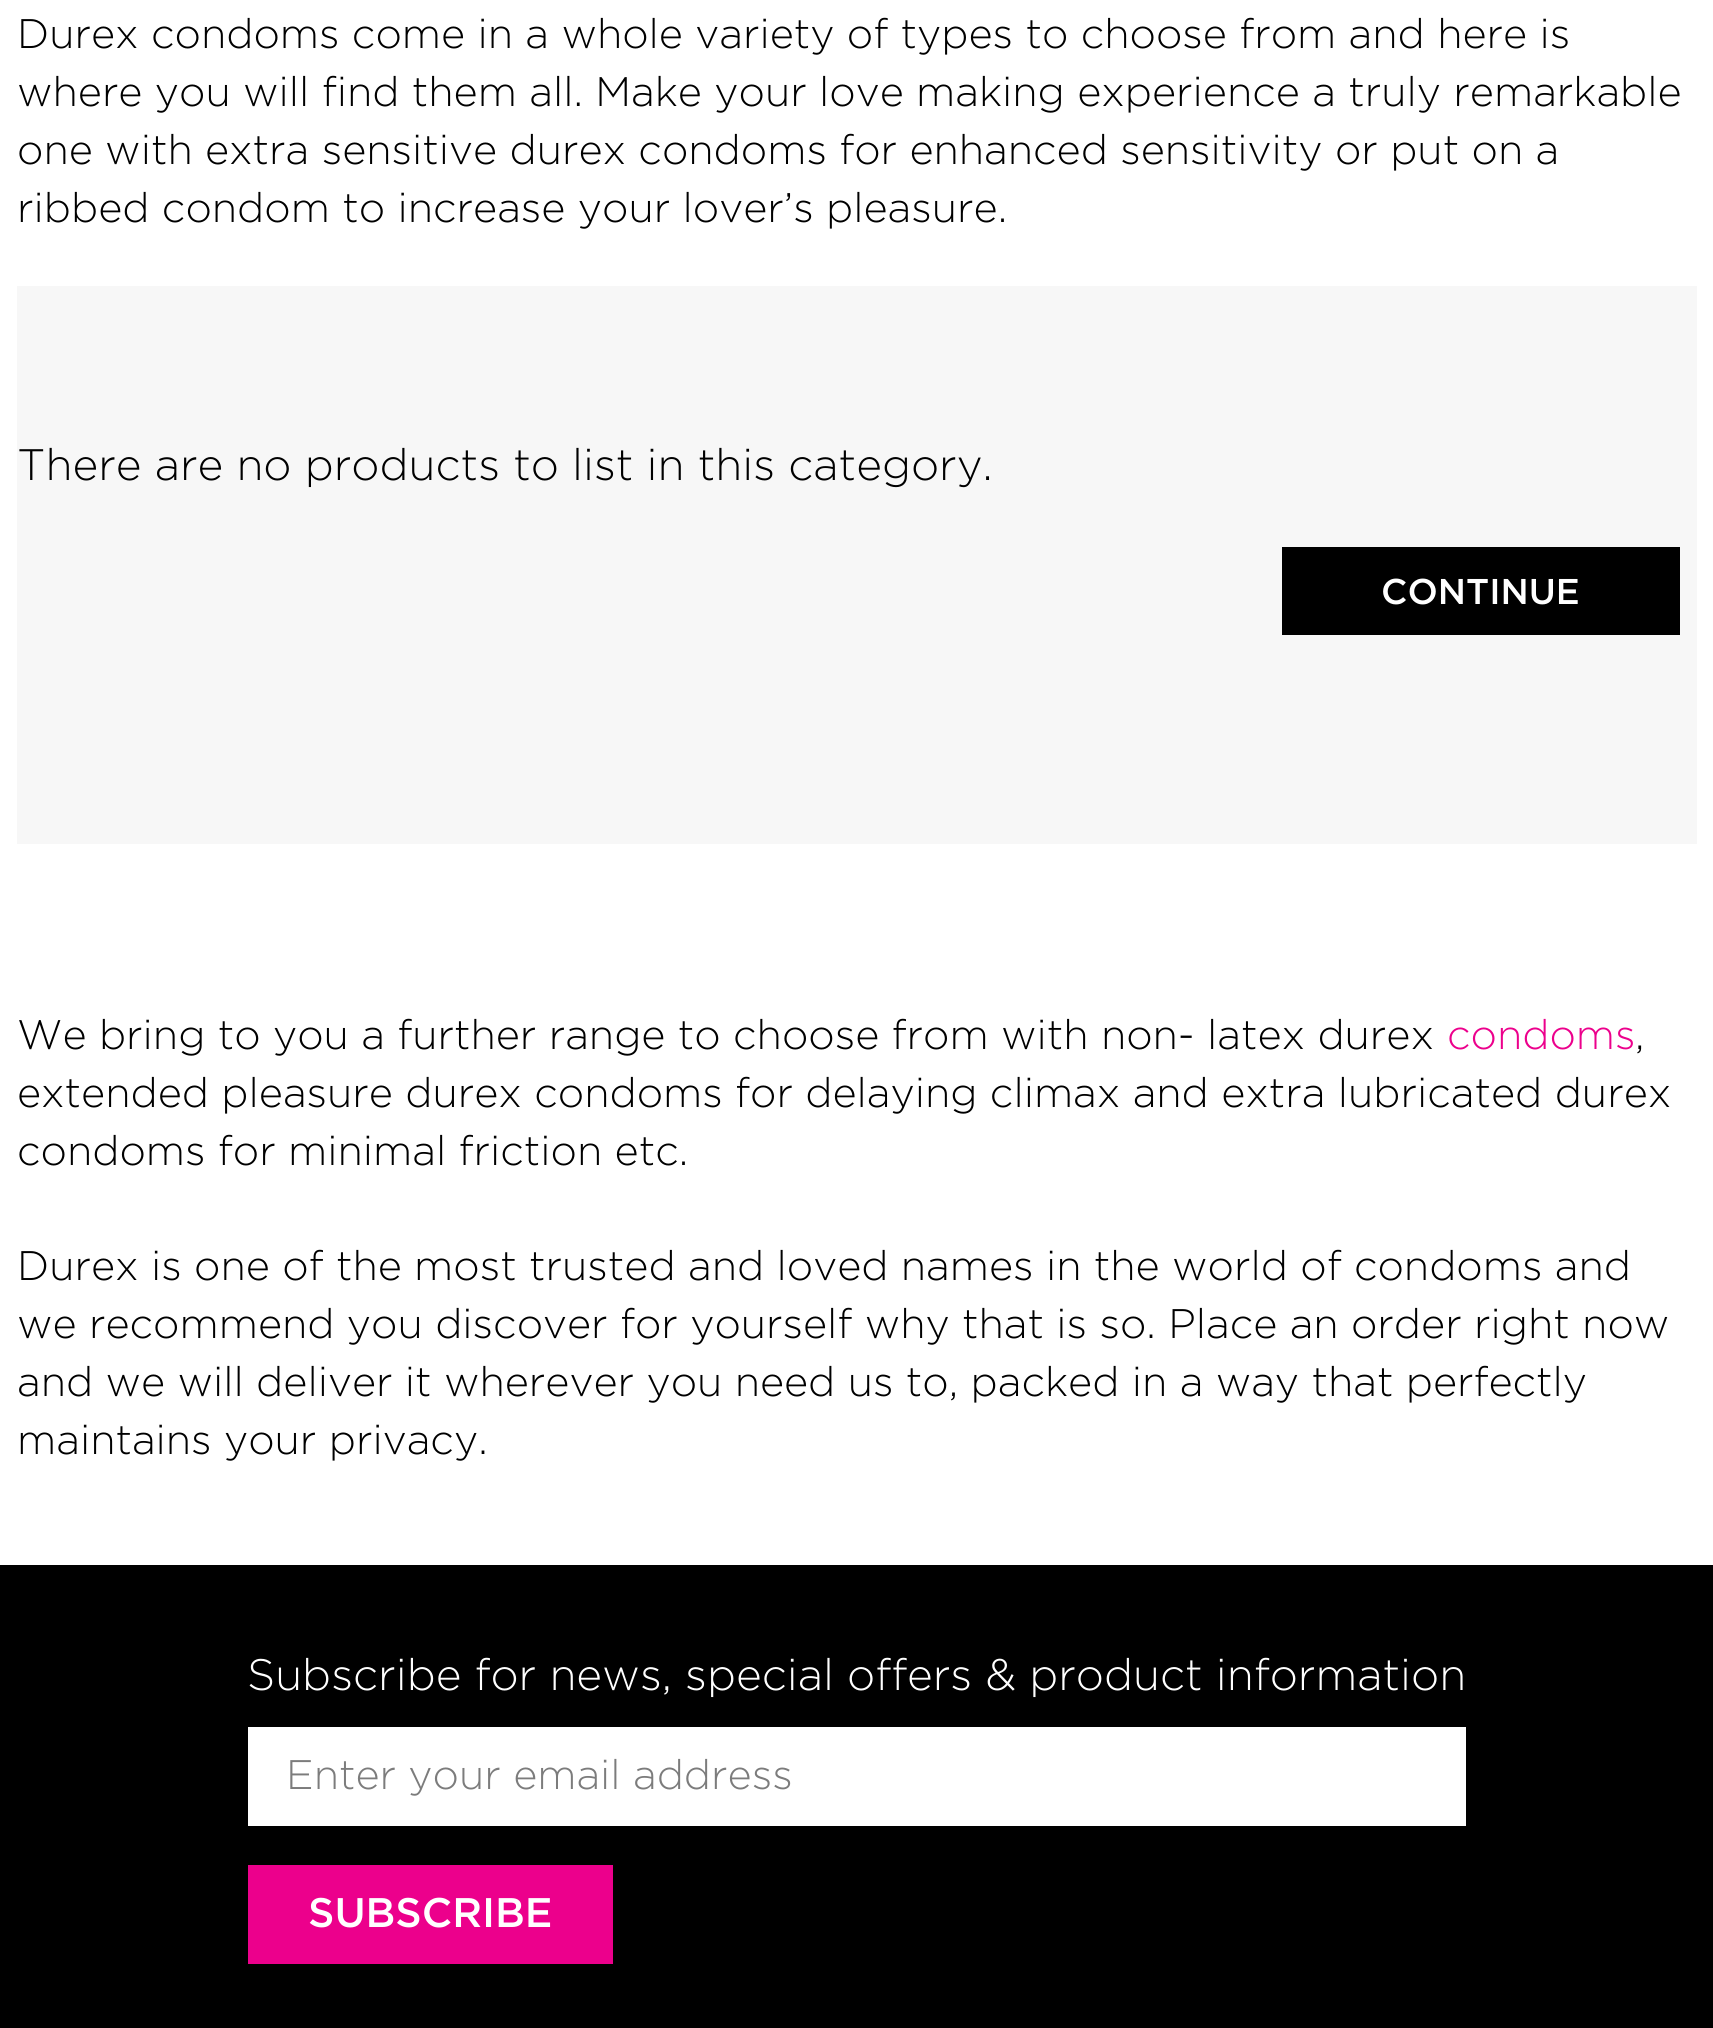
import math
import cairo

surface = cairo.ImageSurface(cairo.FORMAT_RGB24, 1713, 2028)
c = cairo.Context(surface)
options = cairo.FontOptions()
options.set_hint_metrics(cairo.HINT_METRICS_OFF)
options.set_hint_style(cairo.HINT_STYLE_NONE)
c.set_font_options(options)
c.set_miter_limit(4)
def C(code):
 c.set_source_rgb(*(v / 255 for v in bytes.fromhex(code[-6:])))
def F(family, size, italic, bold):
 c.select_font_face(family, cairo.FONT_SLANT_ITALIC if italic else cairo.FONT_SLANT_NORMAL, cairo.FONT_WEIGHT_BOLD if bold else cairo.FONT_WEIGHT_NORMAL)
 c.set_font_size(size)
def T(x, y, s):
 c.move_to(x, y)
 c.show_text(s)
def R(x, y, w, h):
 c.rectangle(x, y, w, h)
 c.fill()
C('ffffff')
c.paint()
F('Gotham Light',41.25,0,0)
C('000000')
T(17,48,'Durex condoms come in a whole variety of types to choose from and here is')
T(17,106,'where you will find them all. Make your love making experience a truly remarkable')
T(17,164,'one with extra sensitive durex condoms for enhanced sensitivity or put on a')
T(17,222,'ribbed condom to increase your lover’s pleasure.')
C('f7f7f7')
R(17,286,1680,558)
F('Gotham Light',44,0,0)
C('000000')
T(17,480,'There are no products to list in this category.')
R(1282,547,398,88)
F('Gotham Medium',35.75,0,0)
C('ffffff')
T(1381,604,'CONTINUE')
F('Gotham Light',41.25,0,0)
C('000000')
T(17,1049,'We bring to you a further range to choose from with non- latex durex')
C('ec008c')
T(1447,1049,'condoms')
C('000000')
T(1635,1049,',')
T(17,1107,'extended pleasure durex condoms for delaying climax and extra lubricated durex')
T(17,1165,'condoms for minimal friction etc.')
T(17,1280,'Durex is one of the most trusted and loved names in the world of condoms and')
T(17,1338,'we recommend you discover for yourself why that is so. Place an order right now')
T(17,1396,'and we will deliver it wherever you need us to, packed in a way that perfectly')
T(17,1454,'maintains your privacy.')
R(0,1565,1713,463)
F('Gotham Light',44,0,0)
C('ffffff')
T(247,1690,'Subscribe for news, special offers & product information')
R(248,1727,1218,99)
F('Gotham Light',41.25,0,0)
C('7c7c7c')
T(286,1789,'Enter your email address')
C('ec008c')
R(248,1865,365,99)
F('Gotham Medium',41.25,0,0)
C('ffffff')
T(308,1927,'SUBSCRIBE')
surface.write_to_png('o.png')
